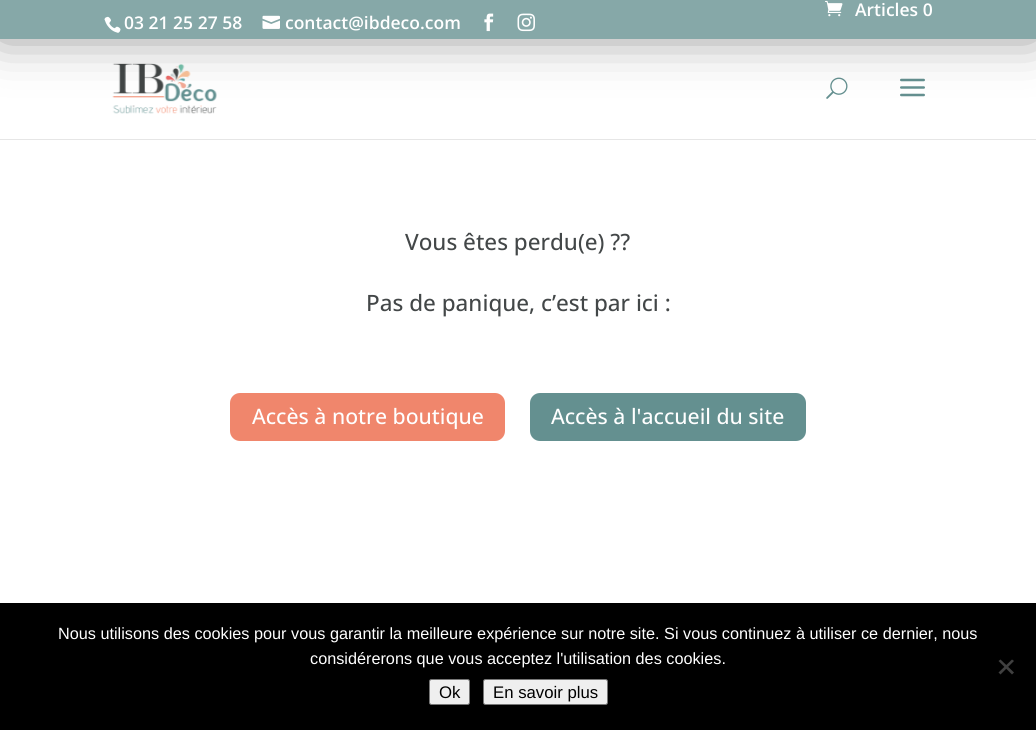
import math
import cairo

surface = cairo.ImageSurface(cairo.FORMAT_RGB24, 1036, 730)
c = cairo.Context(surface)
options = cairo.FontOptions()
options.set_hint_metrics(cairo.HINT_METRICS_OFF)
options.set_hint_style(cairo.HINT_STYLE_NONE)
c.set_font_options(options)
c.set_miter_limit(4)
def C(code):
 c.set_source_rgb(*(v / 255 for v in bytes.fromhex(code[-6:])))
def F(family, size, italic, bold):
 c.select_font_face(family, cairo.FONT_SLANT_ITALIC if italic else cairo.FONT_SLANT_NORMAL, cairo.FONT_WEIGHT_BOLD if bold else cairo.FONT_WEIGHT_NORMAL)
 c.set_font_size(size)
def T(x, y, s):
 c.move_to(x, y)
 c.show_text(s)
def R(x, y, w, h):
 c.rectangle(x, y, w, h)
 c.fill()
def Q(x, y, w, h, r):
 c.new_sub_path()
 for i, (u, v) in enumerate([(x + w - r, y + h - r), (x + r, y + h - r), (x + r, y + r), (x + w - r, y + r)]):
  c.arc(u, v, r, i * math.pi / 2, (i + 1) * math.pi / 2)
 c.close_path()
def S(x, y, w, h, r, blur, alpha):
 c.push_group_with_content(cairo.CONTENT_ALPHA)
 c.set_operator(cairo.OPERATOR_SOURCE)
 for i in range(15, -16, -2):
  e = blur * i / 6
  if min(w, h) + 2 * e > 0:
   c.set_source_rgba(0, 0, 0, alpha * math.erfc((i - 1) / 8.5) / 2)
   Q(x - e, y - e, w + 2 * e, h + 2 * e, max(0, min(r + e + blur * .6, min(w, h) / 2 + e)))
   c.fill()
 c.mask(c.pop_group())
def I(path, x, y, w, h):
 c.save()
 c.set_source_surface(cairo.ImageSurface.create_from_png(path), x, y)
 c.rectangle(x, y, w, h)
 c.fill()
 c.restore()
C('ffffff')
c.paint()
I('6.png',112,63,105,51)
I('7.png',826,77,22,22)
I('8.png',900,78,25,19)
c.save()
c.set_fill_rule(cairo.FILL_RULE_EVEN_ODD)
c.new_path()
c.move_to(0,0)
c.line_to(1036,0)
c.line_to(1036,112)
c.line_to(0,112)
c.close_path()
c.move_to(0,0)
c.line_to(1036,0)
c.line_to(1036,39)
c.line_to(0,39)
c.close_path()
c.clip()
C('000000')
S(0,-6,1036,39,0,26,.5)
c.restore()
c.set_source_rgba(0.392,0.565,0.565,0.78)
R(0,0,1036,39)
I('1.png',825,0,18,17)
F('Open Sans SemiBold',17.5,0,0)
C('ffffff')
T(855,16,'Articles 0')
I('2.png',104,16,17,17)
T(124,29,'03 21 25 27 58')
I('3.png',262,15,18,14)
T(285,29,'contact@ibdeco.com')
I('4.png',484,13,10,19)
I('5.png',517,13,18,19)
C('e6e6e6')
R(0,139,1036,1)
F('Open Sans Medium',22.5,0,0)
C('434748')
T(405,250,'Vous êtes perdu(e) ??')
T(366,311,'Pas de panique, c’est par ici :')
C('f0866c')
Q(230,393,275,48,10)
c.fill()
F('Open Sans Medium',21.25,0,0)
C('ffffff')
T(252,424,'Accès à notre boutique')
C('649090')
Q(530,393,276,48,10)
c.fill()
C('ffffff')
T(551,424,'Accès à l\'accueil du site')
C('000000')
R(0,603,1036,127)
F('Liberation Sans',16.25,0,0)
C('ffffff')
T(58,639,'Nous utilisons des cookies pour vous garantir la meilleure expérience sur notre site. Si vous continuez à utiliser ce dernier, nous')
T(310,664,'considérerons que vous acceptez l\'utilisation des cookies.')
C('404040')
c.new_path()
c.move_to(1012,659.5)
c.line_to(1014,661)
c.line_to(1000.5,674.5)
c.line_to(998.5,672.5)
c.close_path()
c.fill()
c.new_path()
c.move_to(998.5,661)
c.line_to(1000.5,659.5)
c.line_to(1014,672.5)
c.line_to(1012,674.5)
c.close_path()
c.fill()
C('efefef')
Q(429.5,679.5,40,25,2)
c.fill_preserve()
C('767676')
c.set_line_width(1)
c.stroke()
F('Liberation Sans',16.75,0,0)
C('000000')
T(439,698,'Ok')
C('efefef')
Q(483.5,679.5,124,25,2)
c.fill_preserve()
C('767676')
c.stroke()
C('000000')
T(493,698,'En savoir plus')
surface.write_to_png('o.png')
